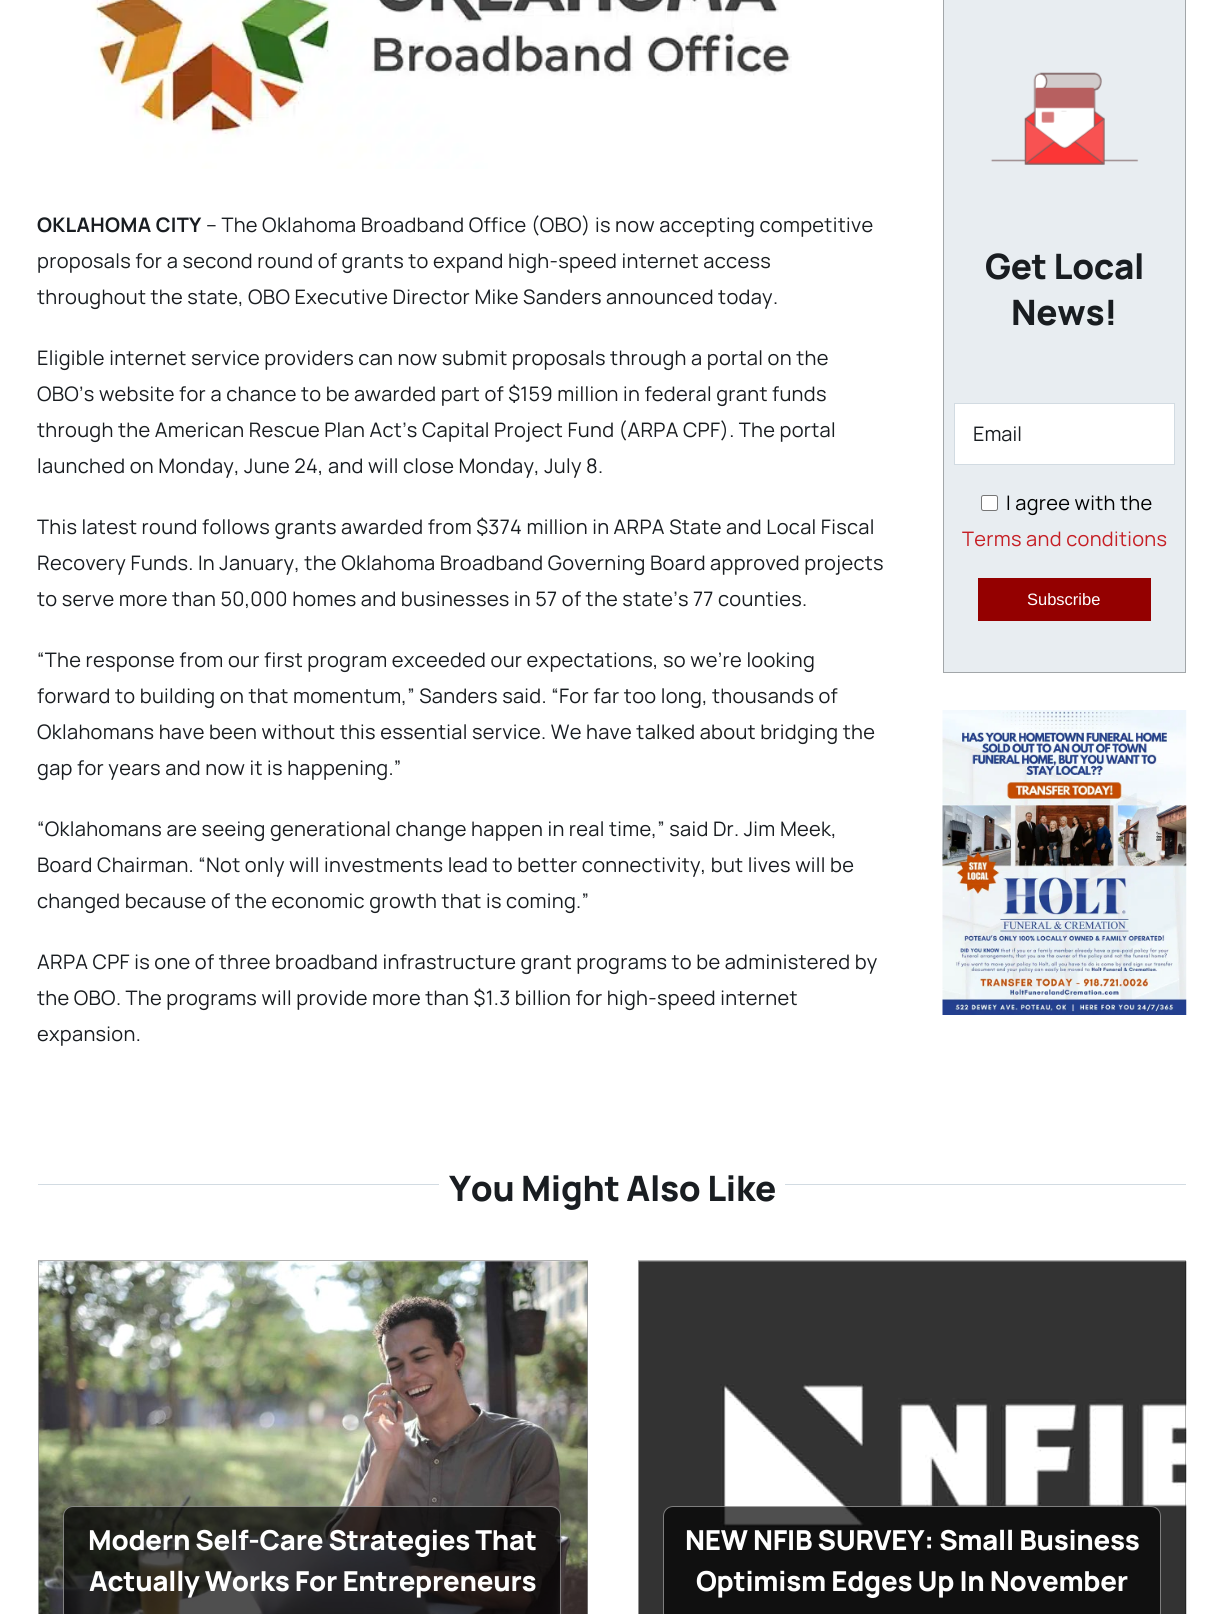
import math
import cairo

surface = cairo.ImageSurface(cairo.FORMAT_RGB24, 1223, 1614)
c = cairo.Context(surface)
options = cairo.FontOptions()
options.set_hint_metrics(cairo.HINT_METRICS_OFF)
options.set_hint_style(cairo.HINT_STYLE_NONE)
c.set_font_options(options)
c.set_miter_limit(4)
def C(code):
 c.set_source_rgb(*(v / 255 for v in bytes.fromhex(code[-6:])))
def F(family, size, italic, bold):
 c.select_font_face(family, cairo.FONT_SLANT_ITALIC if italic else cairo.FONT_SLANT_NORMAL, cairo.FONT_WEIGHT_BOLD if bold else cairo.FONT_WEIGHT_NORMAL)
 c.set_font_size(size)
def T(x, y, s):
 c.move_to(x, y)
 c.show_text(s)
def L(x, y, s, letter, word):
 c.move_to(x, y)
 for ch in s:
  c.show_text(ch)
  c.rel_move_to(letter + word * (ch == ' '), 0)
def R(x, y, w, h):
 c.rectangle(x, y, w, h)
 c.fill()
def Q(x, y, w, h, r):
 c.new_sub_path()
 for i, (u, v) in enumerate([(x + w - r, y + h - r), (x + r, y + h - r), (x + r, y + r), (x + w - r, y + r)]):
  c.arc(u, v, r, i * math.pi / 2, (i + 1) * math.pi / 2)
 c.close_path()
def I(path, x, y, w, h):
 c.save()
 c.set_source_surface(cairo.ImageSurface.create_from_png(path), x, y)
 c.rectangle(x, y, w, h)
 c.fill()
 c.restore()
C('ffffff')
c.paint()
I('1.png',91,0,701,169)
F('Manrope',20,0,1)
C('191d21')
L(37,232,'OKLAHOMA CITY',.3,0)
F('Manrope',20,0,0)
L(206,232,'– The Oklahoma Broadband Office (OBO) is now accepting competitive',.3,0)
L(37,268,'proposals for a second round of grants to expand high-speed internet access',.3,0)
L(37,304,'throughout the state, OBO Executive Director Mike Sanders announced today.',.3,0)
L(37,365,'Eligible internet service providers can now submit proposals through a portal on the',.3,0)
L(37,401,'OBO’s website for a chance to be awarded part of $159 million in federal grant funds',.3,0)
L(37,437,'through the American Rescue Plan Act’s Capital Project Fund (ARPA CPF). The portal',.3,0)
L(37,473,'launched on Monday, June 24, and will close Monday, July 8.',.3,0)
L(37,534,'This latest round follows grants awarded from $374 million in ARPA State and Local Fiscal',.3,0)
L(37,570,'Recovery Funds. In January, the Oklahoma Broadband Governing Board approved projects',.3,0)
L(37,606,'to serve more than 50,000 homes and businesses in 57 of the state’s 77 counties.',.3,0)
L(37,667,'“The response from our first program exceeded our expectations, so we’re looking',.3,0)
L(37,703,'forward to building on that momentum,” Sanders said. “For far too long, thousands of',.3,0)
L(37,739,'Oklahomans have been without this essential service. We have talked about bridging the',.3,0)
L(37,775,'gap for years and now it is happening.”',.3,0)
L(37,836,'“Oklahomans are seeing generational change happen in real time,” said Dr. Jim Meek,',.3,0)
L(37,872,'Board Chairman. “Not only will investments lead to better connectivity, but lives will be',.3,0)
L(37,908,'changed because of the economic growth that is coming.”',.3,0)
L(37,969,'ARPA CPF is one of three broadband infrastructure grant programs to be administered by',.3,0)
L(37,1005,'the OBO. The programs will provide more than $1.3 billion for high-speed internet',.3,0)
L(37,1041,'expansion.',.3,0)
C('e8edf1')
c.rectangle(943.5,-.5,242,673)
c.fill_preserve()
C('a2a6a9')
c.set_line_width(1)
c.stroke()
I('2.png',990,72,149,93)
F('Manrope ExtraBold',35,0,0)
C('191d21')
L(985,279,'Get Local',-.3,0)
L(1011,325,'News!',-.3,0)
C('ffffff')
c.rectangle(954.5,403.5,220,61)
c.fill_preserve()
C('d2dbe2')
c.stroke()
F('Manrope',20,0,0)
C('191d21')
T(973,441,'Email')
C('ffffff')
Q(981.5,495.5,16,15,2)
c.fill_preserve()
C('767676')
c.stroke()
C('000000')
L(1006,510,'I agree with the',.3,0)
C('c61f25')
L(962,546,'Terms and conditions',.3,0)
C('940000')
R(978,578,173,43)
F('Liberation Sans',16.5,0,0)
C('ffffff')
T(1027,605,'Subscribe')
I('3.png',942,710,245,305)
C('d2dbe2')
R(38,1184,401,1)
F('Manrope ExtraBold',35,0,0)
C('191d21')
L(449,1201,'You Might Also Like',-.3,0)
C('d2dbe2')
R(785,1184,401,1)
I('4.png',38,1261,550,353)
c.rectangle(38.5,1260.5,549,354)
c.set_source_rgba(0,0,0,0.3)
c.stroke()
c.set_source_rgba(0,0,0,0.69)
Q(63,1506,498,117,10)
c.fill()
Q(63.5,1506.5,497,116,9.5)
c.set_source_rgba(1,1,1,0.46)
c.stroke()
F('Manrope ExtraBold',27.5,0,0)
C('ffffff')
L(88,1550,'Modern Self-Care Strategies That',-.25,0)
L(89,1591,'Actually Works For Entrepreneurs',-.25,0)
I('5.png',638,1261,549,353)
c.rectangle(638.5,1260.5,547,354)
c.set_source_rgba(0,0,0,0.3)
c.stroke()
c.set_source_rgba(0,0,0,0.69)
Q(663,1506,498,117,10)
c.fill()
Q(663.5,1506.5,497,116,9.5)
c.set_source_rgba(1,1,1,0.46)
c.stroke()
C('ffffff')
L(685,1550,'NEW NFIB SURVEY: Small Business',-.25,0)
L(696,1591,'Optimism Edges Up In November',-.25,0)
surface.write_to_png('o.png')
